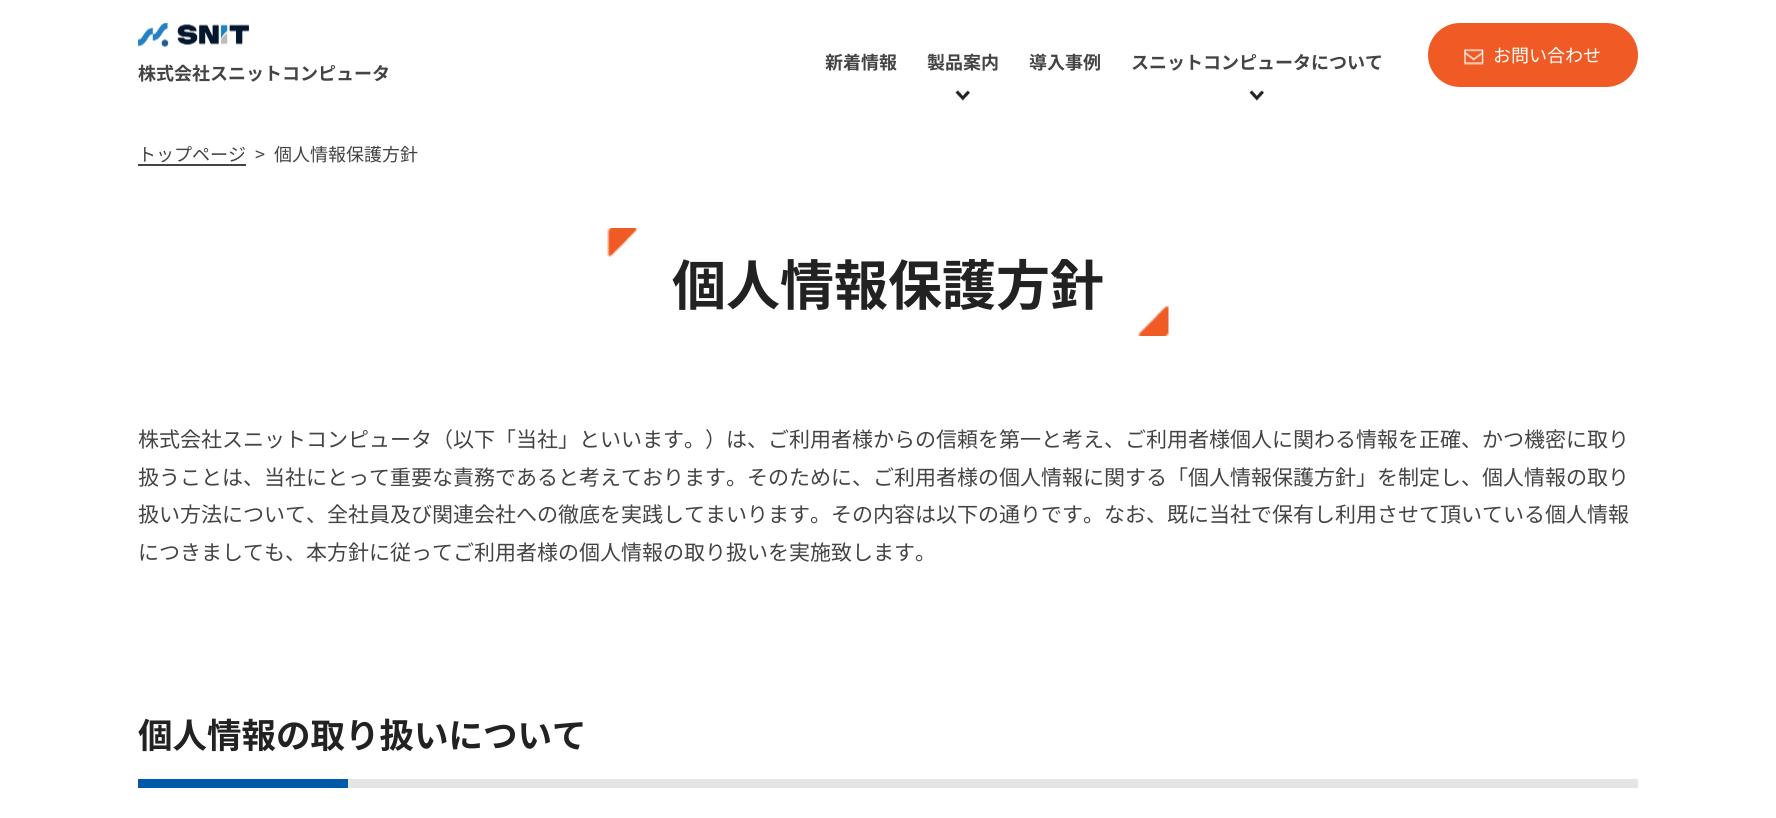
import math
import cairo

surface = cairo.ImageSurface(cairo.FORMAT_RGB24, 1776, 818)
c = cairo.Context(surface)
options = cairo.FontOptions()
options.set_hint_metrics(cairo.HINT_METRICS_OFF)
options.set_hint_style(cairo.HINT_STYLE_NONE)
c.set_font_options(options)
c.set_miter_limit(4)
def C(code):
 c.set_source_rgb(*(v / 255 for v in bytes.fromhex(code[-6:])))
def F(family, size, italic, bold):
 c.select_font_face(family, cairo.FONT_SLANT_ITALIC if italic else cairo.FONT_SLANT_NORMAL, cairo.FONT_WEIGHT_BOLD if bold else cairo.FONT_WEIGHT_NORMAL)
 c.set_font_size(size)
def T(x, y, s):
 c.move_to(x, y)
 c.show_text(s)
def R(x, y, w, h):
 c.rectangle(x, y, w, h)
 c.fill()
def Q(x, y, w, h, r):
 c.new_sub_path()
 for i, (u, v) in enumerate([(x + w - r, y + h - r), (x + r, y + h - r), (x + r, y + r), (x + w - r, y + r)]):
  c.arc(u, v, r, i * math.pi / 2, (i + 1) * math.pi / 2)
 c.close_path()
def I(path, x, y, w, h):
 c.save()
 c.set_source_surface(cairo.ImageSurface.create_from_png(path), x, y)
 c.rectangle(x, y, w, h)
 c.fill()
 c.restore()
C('ffffff')
c.paint()
F('Noto Sans JP',18,0,1)
C('444444')
T(825,69,'新着情報')
I('1.png',955,90,15,11)
T(927,69,'製品案内')
T(1029,69,'導入事例')
I('1.png',1249,90,15,11)
T(1131,69,'スニットコンピュータについて')
C('f05a24')
Q(1428,23,210,64,32)
c.fill()
I('2.png',1464,49,20,16)
F('Noto Sans JP',18,0,0)
C('ffffff')
T(1493,62,'お問い合わせ')
I('3.png',138,23,111,24)
F('Noto Sans JP',18,0,1)
C('444444')
T(138,80,'株式会社スニットコンピュータ')
F('Noto Sans JP',18,0,0)
T(138,161,'トップページ')
R(138,164,108,2)
T(255,161,'>')
T(274,161,'個人情報保護方針')
I('4.png',607,228,31,29)
F('Noto Sans JP',54,0,1)
C('222222')
T(672,305,'個人情報保護方針')
I('5.png',1138,306,31,30)
F('Noto Sans JP',21,0,0)
C('444444')
T(138,447,'株式会社スニットコンピュータ（以下「当社」といいます。）は、ご利用者様からの信頼を第一と考え、ご利用者様個人に関わる情報を正確、かつ機密に取り')
T(138,485,'扱うことは、当社にとって重要な責務であると考えております。そのために、ご利用者様の個人情報に関する「個人情報保護方針」を制定し、個人情報の取り')
T(138,522,'扱い方法について、全社員及び関連会社への徹底を実践してまいります。その内容は以下の通りです。なお、既に当社で保有し利用させて頂いている個人情報')
T(138,560,'につきましても、本方針に従ってご利用者様の個人情報の取り扱いを実施致します。')
C('e5e5e5')
R(348,779,1290,9)
F('Noto Sans JP',34.5,0,1)
C('222222')
T(138,748,'個人情報の取り扱いについて')
C('005aa9')
R(138,779,210,9)
surface.write_to_png('o.png')
